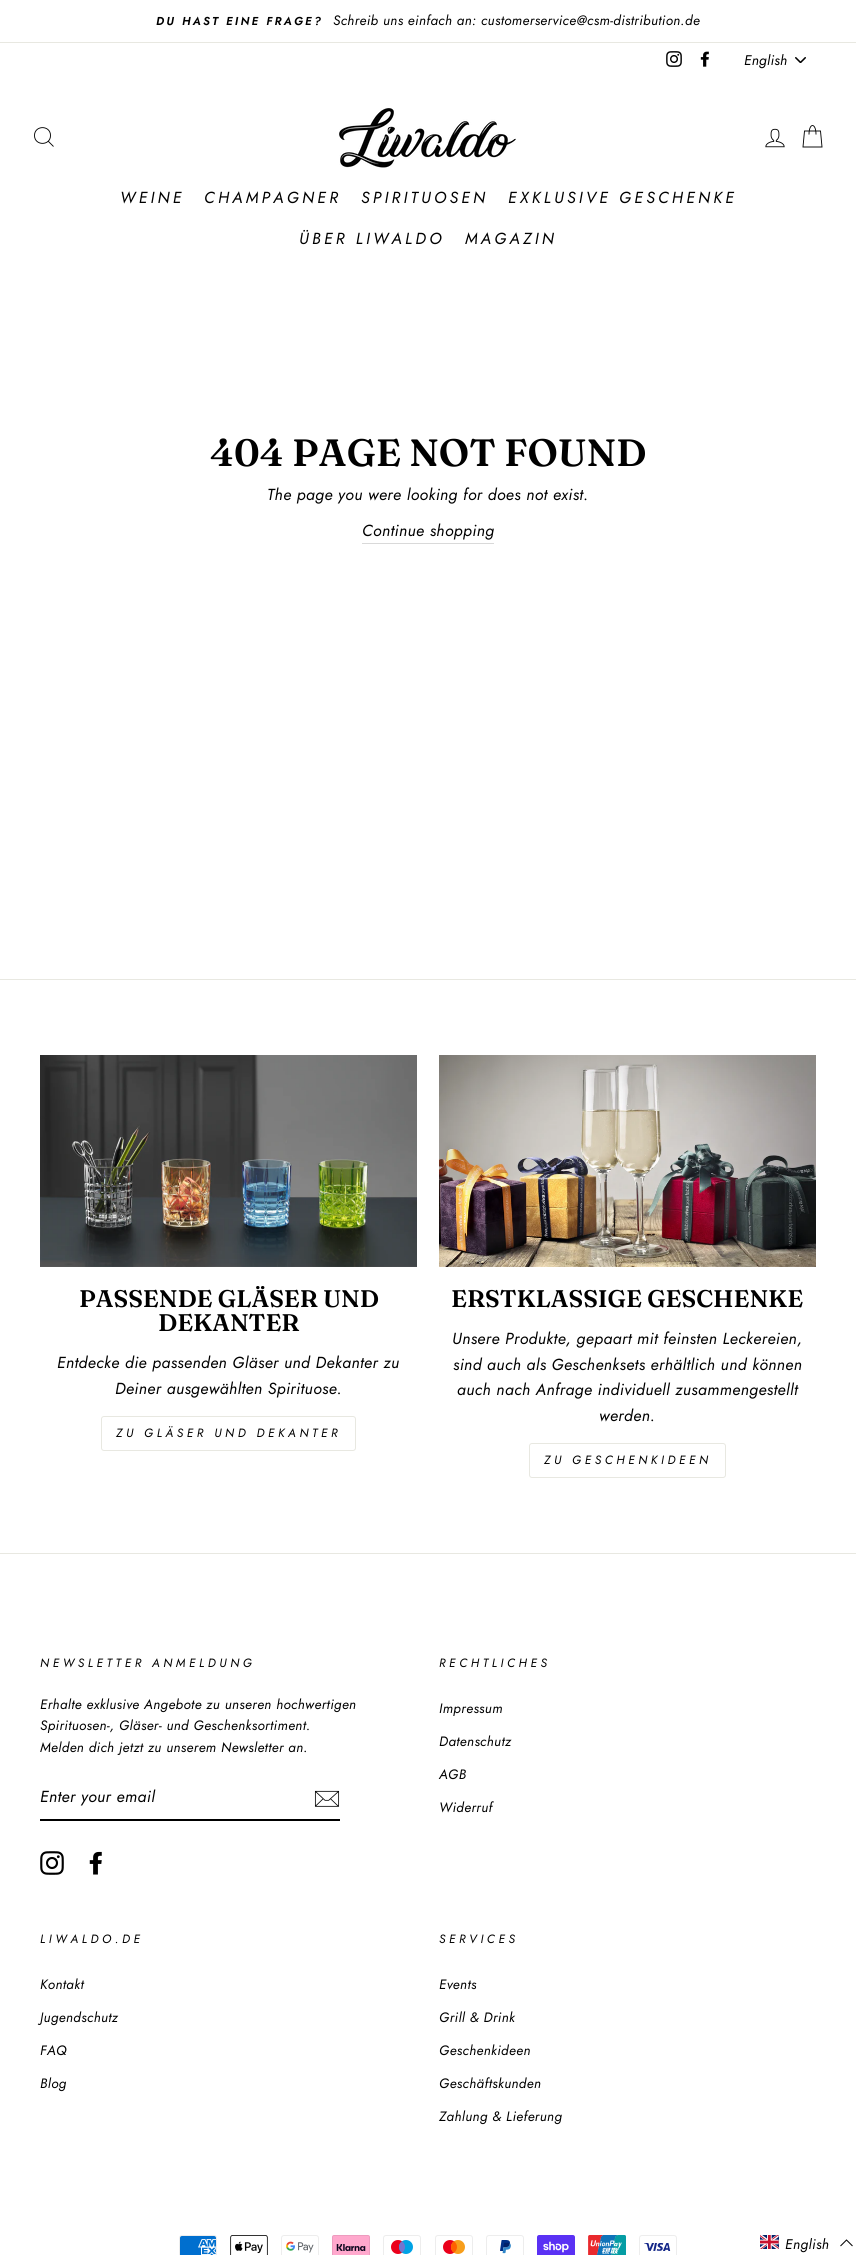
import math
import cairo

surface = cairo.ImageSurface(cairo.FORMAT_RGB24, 856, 2255)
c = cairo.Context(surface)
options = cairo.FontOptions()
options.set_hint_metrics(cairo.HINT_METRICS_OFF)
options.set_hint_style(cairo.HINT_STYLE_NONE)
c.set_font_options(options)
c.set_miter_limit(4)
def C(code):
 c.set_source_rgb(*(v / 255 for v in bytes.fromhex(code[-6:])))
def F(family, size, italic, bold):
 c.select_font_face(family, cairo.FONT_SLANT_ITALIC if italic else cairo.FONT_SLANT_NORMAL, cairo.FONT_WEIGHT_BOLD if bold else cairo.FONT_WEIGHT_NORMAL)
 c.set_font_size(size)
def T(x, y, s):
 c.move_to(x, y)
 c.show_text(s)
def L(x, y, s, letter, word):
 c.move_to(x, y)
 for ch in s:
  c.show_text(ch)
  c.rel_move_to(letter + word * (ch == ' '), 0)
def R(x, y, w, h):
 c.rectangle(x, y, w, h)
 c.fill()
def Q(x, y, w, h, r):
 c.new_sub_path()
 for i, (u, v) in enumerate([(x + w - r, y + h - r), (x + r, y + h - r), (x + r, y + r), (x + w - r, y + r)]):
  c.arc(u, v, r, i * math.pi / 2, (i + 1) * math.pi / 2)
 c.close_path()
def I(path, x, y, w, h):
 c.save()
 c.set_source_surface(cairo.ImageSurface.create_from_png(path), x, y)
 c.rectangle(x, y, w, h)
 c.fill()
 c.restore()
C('ffffff')
c.paint()
C('e8e8e1')
R(0,42,856,1)
F('Jost SemiBold',11.5,1,0)
C('000000')
L(156,25,'DU HAST EINE FRAGE?',2.3,0)
F('Jost',13.6,1,0)
L(333,25,'Schreib uns einfach an: customerservice@csm-distribution.de',.4,0)
I('1.png',666,51,16,16)
I('2.png',700,51,9,16)
I('3.png',795,57,11,6)
F('Jost',14,1,0)
L(744,65,'English',.25,0)
c.new_path()
c.move_to(50.5,135.5)
c.curve_to(50.5,146,34.5,146,34.5,135.5)
c.curve_to(34.5,125,50.5,125,50.5,135.5)
c.close_path()
c.move_to(53.5,146.5)
c.line_to(48.5,141.5)
c.set_line_width(.9)
c.stroke()
I('4.png',339,108,177,60)
I('5.png',765,128,20,20)
c.new_path()
c.move_to(809,134.5)
c.curve_to(809,122.5,816,122.5,816,134.5)
c.move_to(804.5,131)
c.line_to(820.5,131)
c.line_to(822,147)
c.line_to(803,147)
c.close_path()
c.stroke()
F('Jost',16,1,0)
L(120,203,'WEINE',3.25,0)
L(204,203,'CHAMPAGNER',3.25,0)
L(361,203,'SPIRITUOSEN',3.25,0)
L(508,203,'EXKLUSIVE GESCHENKE',3.25,0)
L(299,244,'ÜBER LIWALDO',3.25,0)
L(465,244,'MAGAZIN',3.25,0)
F('Fraunces SemiBold',38,0,0)
T(210,466,'404 PAGE NOT FOUND')
F('Jost',16,1,0)
L(267,500,'The page you were looking for does not exist.',.4,0)
C('d9d9d9')
R(362,543,132,1)
C('000000')
L(362,536,'Continue shopping',.4,0)
C('e8e8e1')
R(0,979,856,1)
I('6.png',40,1055,377,212)
F('Fraunces SemiBold',24,0,0)
C('000000')
T(79,1307,'PASSENDE GLÄSER UND')
T(158,1331,'DEKANTER')
F('Jost',16,1,0)
L(57,1368,'Entdecke die passenden Gläser und Dekanter zu',.4,0)
L(115,1394,'Deiner ausgewählten Spirituose.',.4,0)
Q(101.5,1416.5,254,34,2.5)
C('e8e8e1')
c.set_line_width(1)
c.stroke()
F('Jost',12,1,0)
C('000000')
L(116,1437,'ZU GLÄSER UND DEKANTER',3.6,0)
I('7.png',439,1055,377,212)
F('Fraunces SemiBold',24,0,0)
T(451,1307,'ERSTKLASSIGE GESCHENKE')
F('Jost',16,1,0)
L(452,1344,'Unsere Produkte, gepaart mit feinsten Leckereien,',.4,0)
L(453,1370,'sind auch als Geschenksets erhältlich und können',.4,0)
L(457,1395,'auch nach Anfrage individuell zusammengestellt',.4,0)
L(599,1421,'werden.',.4,0)
Q(529.5,1443.5,196,34,2.5)
C('e8e8e1')
c.stroke()
F('Jost',12,1,0)
C('000000')
L(544,1464,'ZU GESCHENKIDEEN',3.6,0)
C('e8e8e1')
R(0,1553,856,1)
C('000000')
L(40,1667,'NEWSLETTER ANMELDUNG',3.6,0)
F('Jost',13.6,1,0)
L(40,1709,'Erhalte exklusive Angebote zu unseren hochwertigen',.4,0)
L(40,1730,'Spirituosen-, Gläser- und Geschenksortiment.',.4,0)
L(40,1752,'Melden dich jetzt zu unserem Newsletter an.',.4,0)
R(40,1819,300,2)
F('Jost',16,1,0)
L(40,1802,'Enter your email',.4,0)
I('8.png',314,1790,26,17)
I('9.png',40,1851,24,24)
I('10.png',89,1851,13,24)
F('Jost',12,1,0)
L(439,1667,'RECHTLICHES',3.6,0)
F('Jost',13.6,1,0)
L(439,1713,'Impressum',.4,0)
L(439,1746,'Datenschutz',.4,0)
L(439,1779,'AGB',.4,0)
L(439,1812,'Widerruf',.4,0)
F('Jost',12,1,0)
L(40,1943,'LIWALDO.DE',3.6,0)
F('Jost',13.6,1,0)
L(40,1989,'Kontakt',.4,0)
L(40,2022,'Jugendschutz',.4,0)
L(40,2055,'FAQ',.4,0)
L(40,2088,'Blog',.4,0)
F('Jost',12,1,0)
L(439,1943,'SERVICES',3.6,0)
F('Jost',13.6,1,0)
L(439,1989,'Events',.4,0)
L(439,2022,'Grill & Drink',.4,0)
L(439,2055,'Geschenkideen',.4,0)
L(439,2088,'Geschäftskunden',.4,0)
L(439,2121,'Zahlung & Lieferung',.4,0)
I('11.png',179,2235,38,20)
I('12.png',230,2235,38,20)
I('13.png',281,2235,38,20)
I('14.png',332,2235,38,20)
I('15.png',383,2235,38,20)
I('16.png',435,2235,38,20)
I('17.png',486,2235,38,20)
I('18.png',537,2235,38,20)
I('19.png',588,2235,38,20)
I('20.png',639,2235,38,20)
I('21.png',760,2235,19,14)
F('Jost',14,1,0)
L(785,2249,'English',.4,0)
c.new_path()
c.move_to(852.5,2246)
c.line_to(846.5,2240)
c.line_to(840.5,2246)
c.stroke()
surface.write_to_png('o.png')
